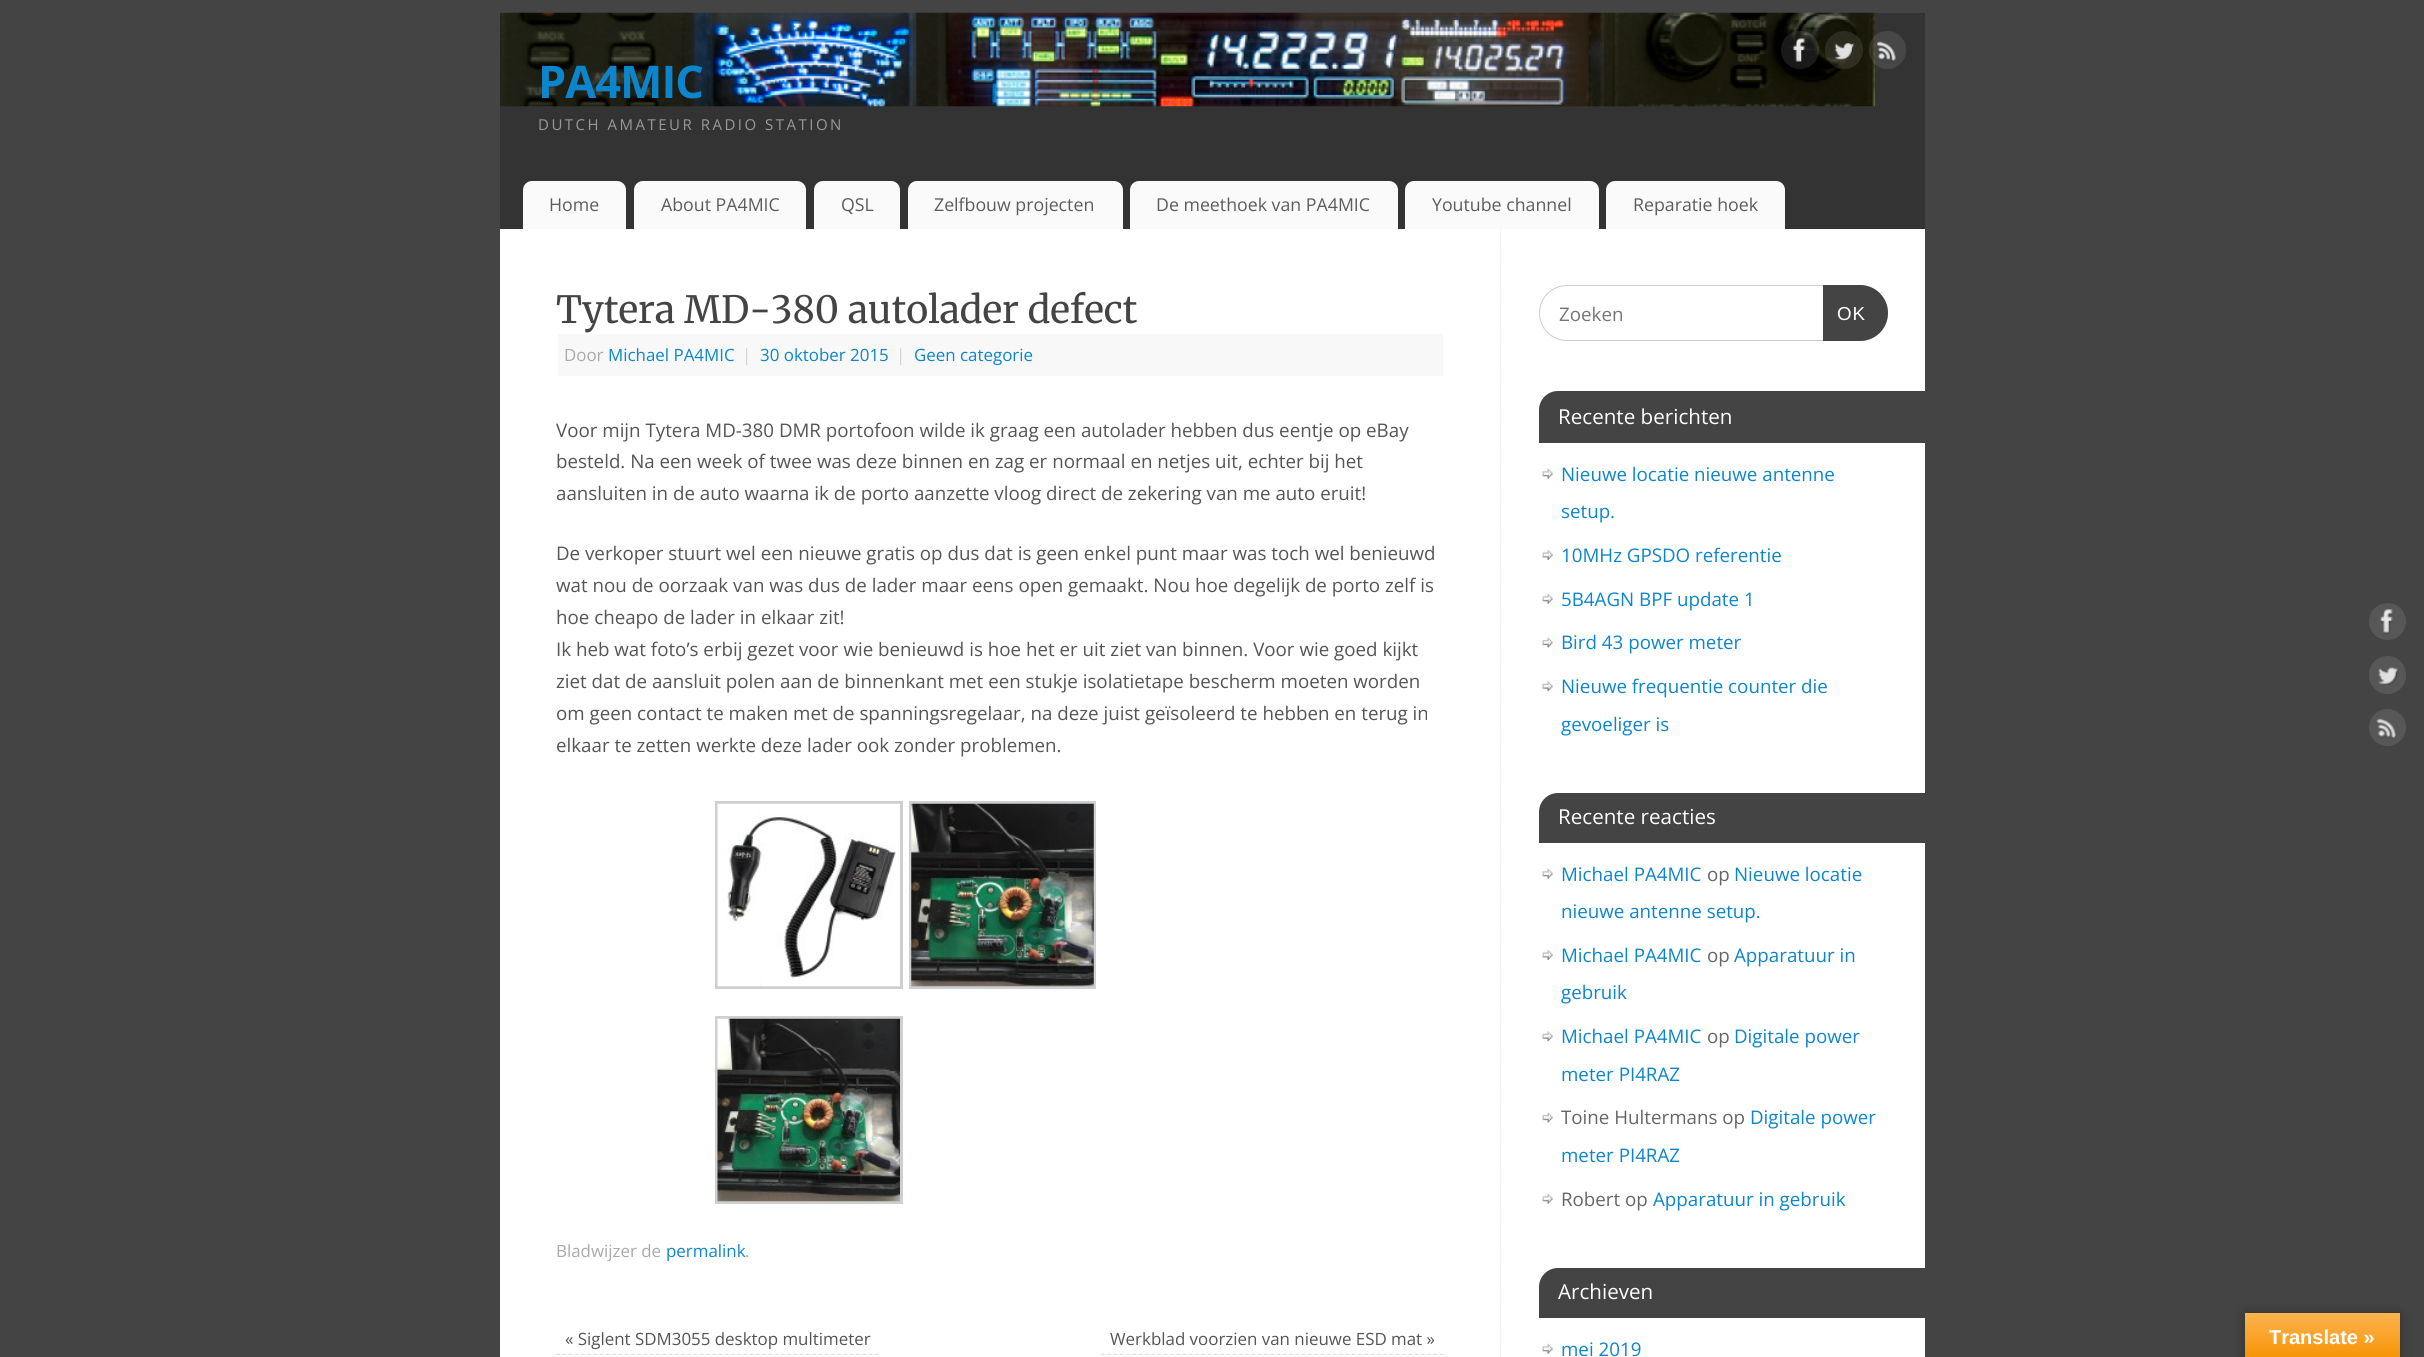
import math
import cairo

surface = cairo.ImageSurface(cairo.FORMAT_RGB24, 2424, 1357)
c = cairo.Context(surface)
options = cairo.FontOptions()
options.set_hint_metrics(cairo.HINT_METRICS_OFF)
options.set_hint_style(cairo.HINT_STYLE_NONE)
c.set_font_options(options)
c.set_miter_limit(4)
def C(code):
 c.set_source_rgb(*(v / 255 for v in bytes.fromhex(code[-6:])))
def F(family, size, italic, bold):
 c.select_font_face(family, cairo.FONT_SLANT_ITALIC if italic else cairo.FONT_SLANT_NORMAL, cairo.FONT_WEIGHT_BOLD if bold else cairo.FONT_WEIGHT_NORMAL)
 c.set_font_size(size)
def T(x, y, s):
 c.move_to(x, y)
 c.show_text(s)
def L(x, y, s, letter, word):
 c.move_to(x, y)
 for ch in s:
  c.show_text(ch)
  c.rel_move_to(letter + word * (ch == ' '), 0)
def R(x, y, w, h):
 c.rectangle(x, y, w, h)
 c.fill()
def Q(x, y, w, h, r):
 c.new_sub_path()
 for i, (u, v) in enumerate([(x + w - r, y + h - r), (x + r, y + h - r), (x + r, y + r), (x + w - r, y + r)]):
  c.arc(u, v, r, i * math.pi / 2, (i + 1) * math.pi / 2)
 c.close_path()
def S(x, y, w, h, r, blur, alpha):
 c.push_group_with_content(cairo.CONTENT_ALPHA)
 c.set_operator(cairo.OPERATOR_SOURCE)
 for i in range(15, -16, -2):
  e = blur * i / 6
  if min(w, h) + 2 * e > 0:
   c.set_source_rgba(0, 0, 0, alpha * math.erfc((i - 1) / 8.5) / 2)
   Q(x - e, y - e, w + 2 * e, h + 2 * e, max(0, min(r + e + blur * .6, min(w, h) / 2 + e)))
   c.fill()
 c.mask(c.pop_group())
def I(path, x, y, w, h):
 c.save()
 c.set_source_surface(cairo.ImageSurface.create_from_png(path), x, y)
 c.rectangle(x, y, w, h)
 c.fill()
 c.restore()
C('444444')
c.paint()
C('333333')
R(500,13,1425,216)
I('1.png',500,12,1375,95)
c.set_source_rgba(1,1,1,0.1)
c.arc(1800,50,19,0,2 * math.pi)
c.fill()
I('2.png',1793,38,12,25)
c.arc(1844,50,19,0,2 * math.pi)
c.fill()
I('3.png',1834,43,21,18)
Q(1869,31,37,38,18.5)
c.fill()
I('4.png',1877,41,19,21)
F('Open Sans',45,0,1)
C('0d85cc')
L(538,98,'PA4MIC',-1,0)
F('Open Sans',15,0,0)
C('999999')
L(538,130,'DUTCH AMATEUR RADIO STATION',2.5,0)
C('fafafa')
c.new_path()
c.move_to(532,181)
c.line_to(617,181)
c.curve_to(622,181,626,185,626,190)
c.line_to(626,229)
c.line_to(523,229)
c.line_to(523,190)
c.curve_to(523,185,527,181,532,181)
c.close_path()
c.fill()
F('Open Sans',17.75,0,0)
C('5f5b5b')
T(549,211,'Home')
C('fafafa')
c.new_path()
c.move_to(643,181)
c.line_to(797,181)
c.curve_to(802,181,806,185,806,190)
c.line_to(806,229)
c.line_to(634,229)
c.line_to(634,190)
c.curve_to(634,185,638,181,643,181)
c.close_path()
c.fill()
C('5f5b5b')
T(661,211,'About PA4MIC')
C('fafafa')
c.new_path()
c.move_to(823,181)
c.line_to(891,181)
c.curve_to(896,181,900,185,900,190)
c.line_to(900,229)
c.line_to(814,229)
c.line_to(814,190)
c.curve_to(814,185,818,181,823,181)
c.close_path()
c.fill()
C('5f5b5b')
T(841,211,'QSL')
C('fafafa')
c.new_path()
c.move_to(917,181)
c.line_to(1114,181)
c.curve_to(1119,181,1123,185,1123,190)
c.line_to(1123,229)
c.line_to(908,229)
c.line_to(908,190)
c.curve_to(908,185,912,181,917,181)
c.close_path()
c.fill()
C('5f5b5b')
T(934,211,'Zelfbouw projecten')
C('fafafa')
c.new_path()
c.move_to(1139,181)
c.line_to(1389,181)
c.curve_to(1394,181,1398,185,1398,190)
c.line_to(1398,229)
c.line_to(1130,229)
c.line_to(1130,190)
c.curve_to(1130,185,1134,181,1139,181)
c.close_path()
c.fill()
C('5f5b5b')
T(1156,211,'De meethoek van PA4MIC')
C('fafafa')
c.new_path()
c.move_to(1414,181)
c.line_to(1590,181)
c.curve_to(1595,181,1599,185,1599,190)
c.line_to(1599,229)
c.line_to(1405,229)
c.line_to(1405,190)
c.curve_to(1405,185,1409,181,1414,181)
c.close_path()
c.fill()
C('5f5b5b')
T(1432,211,'Youtube channel')
C('fafafa')
c.new_path()
c.move_to(1615,181)
c.line_to(1776,181)
c.curve_to(1781,181,1785,185,1785,190)
c.line_to(1785,229)
c.line_to(1606,229)
c.line_to(1606,190)
c.curve_to(1606,185,1610,181,1615,181)
c.close_path()
c.fill()
C('5f5b5b')
T(1633,211,'Reparatie hoek')
C('ffffff')
R(500,229,1425,1128)
F('Merriweather',37.5,0,0)
C('444444')
T(556,323,'Tytera MD-380 autolader defect')
C('f8f8f8')
R(558,334,885,42)
F('Open Sans',16.9,0,0)
C('aaaaaa')
T(564,361,'Door')
C('0d85cc')
T(608,361,'Michael PA4MIC')
C('d1d1d1')
T(742,361,'|')
C('0d85cc')
T(760,361,'30 oktober 2015')
C('d1d1d1')
T(896,361,'|')
C('0d85cc')
T(914,361,'Geen categorie')
F('Open Sans',18.75,0,0)
C('555555')
T(556,437,'Voor mijn Tytera MD-380 DMR portofoon wilde ik graag een autolader hebben dus eentje op eBay')
T(556,468,'besteld. Na een week of twee was deze binnen en zag er normaal en netjes uit, echter bij het')
T(556,500,'aansluiten in de auto waarna ik de porto aanzette vloog direct de zekering van me auto eruit!')
T(556,560,'De verkoper stuurt wel een nieuwe gratis op dus dat is geen enkel punt maar was toch wel benieuwd')
T(556,592,'wat nou de oorzaak van was dus de lader maar eens open gemaakt. Nou hoe degelijk de porto zelf is')
T(556,624,'hoe cheapo de lader in elkaar zit!')
T(556,656,'Ik heb wat foto’s erbij gezet voor wie benieuwd is hoe het er uit ziet van binnen. Voor wie goed kijkt')
T(556,688,'ziet dat de aansluit polen aan de binnenkant met een stukje isolatietape bescherm moeten worden')
T(556,720,'om geen contact te maken met de spanningsregelaar, na deze juist geïsoleerd te hebben en terug in')
T(556,752,'elkaar te zetten werkte deze lader ook zonder problemen.')
c.rectangle(716.5,802.5,185,185)
C('cfcfcf')
c.set_line_width(3)
c.stroke()
I('5.png',717,803,183,184)
c.rectangle(910.5,802.5,184,185)
c.stroke()
I('6.png',911,803,183,184)
c.rectangle(716.5,1017.5,185,185)
c.stroke()
I('7.png',717,1018,183,184)
F('Open Sans',16.9,0,0)
C('aaaaaa')
T(556,1257,'Bladwijzer de')
C('0d85cc')
T(666,1257,'permalink')
C('aaaaaa')
T(745,1257,'.')
c.save()
c.rectangle(556,1325,888,30)
c.clip()
c.new_path()
c.move_to(556,1354.5)
c.line_to(879,1354.5)
C('dddddd')
c.set_line_width(1.2)
c.set_dash([3.75,2.5])
c.stroke()
c.restore()
C('555555')
T(565,1345,'« Siglent SDM3055 desktop multimeter')
c.save()
c.rectangle(556,1325,888,30)
c.clip()
c.new_path()
c.move_to(1101,1354.5)
c.line_to(1444,1354.5)
C('dddddd')
c.set_line_width(1.2)
c.set_dash([3.75,2.52])
c.stroke()
c.restore()
T(1110,1345,'Werkblad voorzien van nieuwe ESD mat »')
c.new_path()
c.move_to(1500.5,229)
c.line_to(1500.5,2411)
C('eaeaea')
c.set_line_width(1.2)
c.set_dash([1.25,1.25])
c.stroke()
Q(1539.5,285.5,348,55,27.5)
C('cccccc')
c.set_line_width(1)
c.set_dash([])
c.stroke()
F('Open Sans',18.75,0,0)
C('757575')
T(1559,321,'Zoeken')
C('444444')
c.new_path()
c.move_to(1823,285)
c.line_to(1860,285)
c.curve_to(1875.5,285,1888,297.5,1888,313)
c.curve_to(1888,328.5,1875.5,341,1860,341)
c.line_to(1823,341)
c.close_path()
c.fill()
F('Liberation Sans',18.75,0,0)
C('ffffff')
L(1837,320,'OK',1,0)
C('444444')
c.new_path()
c.move_to(1558,391)
c.line_to(1925,391)
c.line_to(1925,443)
c.line_to(1539,443)
c.line_to(1539,410)
c.curve_to(1539,399.5,1547.5,391,1558,391)
c.close_path()
c.fill()
F('Open Sans',20.6,0,0)
C('ffffff')
T(1558,424,'Recente berichten')
I('8.png',1542,468,11,11)
F('Open Sans',18.75,0,0)
C('0d85cc')
T(1561,481,'Nieuwe locatie nieuwe antenne')
T(1561,518,'setup.')
I('9.png',1542,550,11,10)
T(1561,562,'10MHz GPSDO referentie')
I('8.png',1542,593,11,11)
T(1561,606,'5B4AGN BPF update 1')
I('10.png',1542,637,11,11)
T(1561,649,'Bird 43 power meter')
I('11.png',1542,681,11,11)
T(1561,693,'Nieuwe frequentie counter die')
T(1561,731,'gevoeliger is')
C('444444')
c.new_path()
c.move_to(1558,793)
c.line_to(1925,793)
c.line_to(1925,843)
c.line_to(1539,843)
c.line_to(1539,812)
c.curve_to(1539,801.5,1547.5,793,1558,793)
c.close_path()
c.fill()
F('Open Sans',20.6,0,0)
C('ffffff')
T(1558,824,'Recente reacties')
I('8.png',1542,868,11,11)
F('Open Sans',18.75,0,0)
C('0d85cc')
T(1561,881,'Michael PA4MIC')
C('666666')
T(1707,881,'op')
C('0d85cc')
T(1734,881,'Nieuwe locatie')
T(1561,918,'nieuwe antenne setup.')
I('9.png',1542,950,11,10)
T(1561,962,'Michael PA4MIC')
C('666666')
T(1707,962,'op')
C('0d85cc')
T(1734,962,'Apparatuur in')
T(1561,999,'gebruik')
I('11.png',1542,1031,11,11)
T(1561,1043,'Michael PA4MIC')
C('666666')
T(1707,1043,'op')
C('0d85cc')
T(1734,1043,'Digitale power')
T(1561,1081,'meter PI4RAZ')
I('10.png',1542,1112,11,11)
C('666666')
T(1561,1124,'Toine Hultermans op')
C('0d85cc')
T(1750,1124,'Digitale power')
T(1561,1162,'meter PI4RAZ')
I('8.png',1542,1193,11,11)
C('666666')
T(1561,1206,'Robert op')
C('0d85cc')
T(1653,1206,'Apparatuur in gebruik')
C('444444')
c.new_path()
c.move_to(1558,1268)
c.line_to(1925,1268)
c.line_to(1925,1318)
c.line_to(1539,1318)
c.line_to(1539,1287)
c.curve_to(1539,1276.5,1547.5,1268,1558,1268)
c.close_path()
c.fill()
F('Open Sans',20.6,0,0)
C('ffffff')
T(1558,1299,'Archieven')
I('8.png',1542,1343,11,11)
F('Open Sans',18.75,0,0)
C('0d85cc')
T(1561,1356,'mei 2019')
C('575757')
c.new_path()
c.arc(2387.5,621.5,18.5,0,2 * math.pi)
c.fill()
I('12.png',2380,609,13,26)
Q(2369,656,37,38,18.5)
c.fill()
I('13.png',2378,667,21,18)
c.arc(2387.5,727.5,18.5,0,2 * math.pi)
c.fill()
I('14.png',2376,718,20,22)
C('000000')
S(2245,1313,155,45,0,5.5,.3)
gradient = cairo.LinearGradient(2323,1313,2323,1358)
gradient.add_color_stop_rgba(0,0.984,0.706,0.314,1)
gradient.add_color_stop_rgba(1,0.973,0.58,0.024,1)
c.set_source(gradient)
R(2245,1313,155,44)
F('Liberation Sans',20,0,1)
C('ffffff')
T(2269,1344,'Translate »')
surface.write_to_png('o.png')
